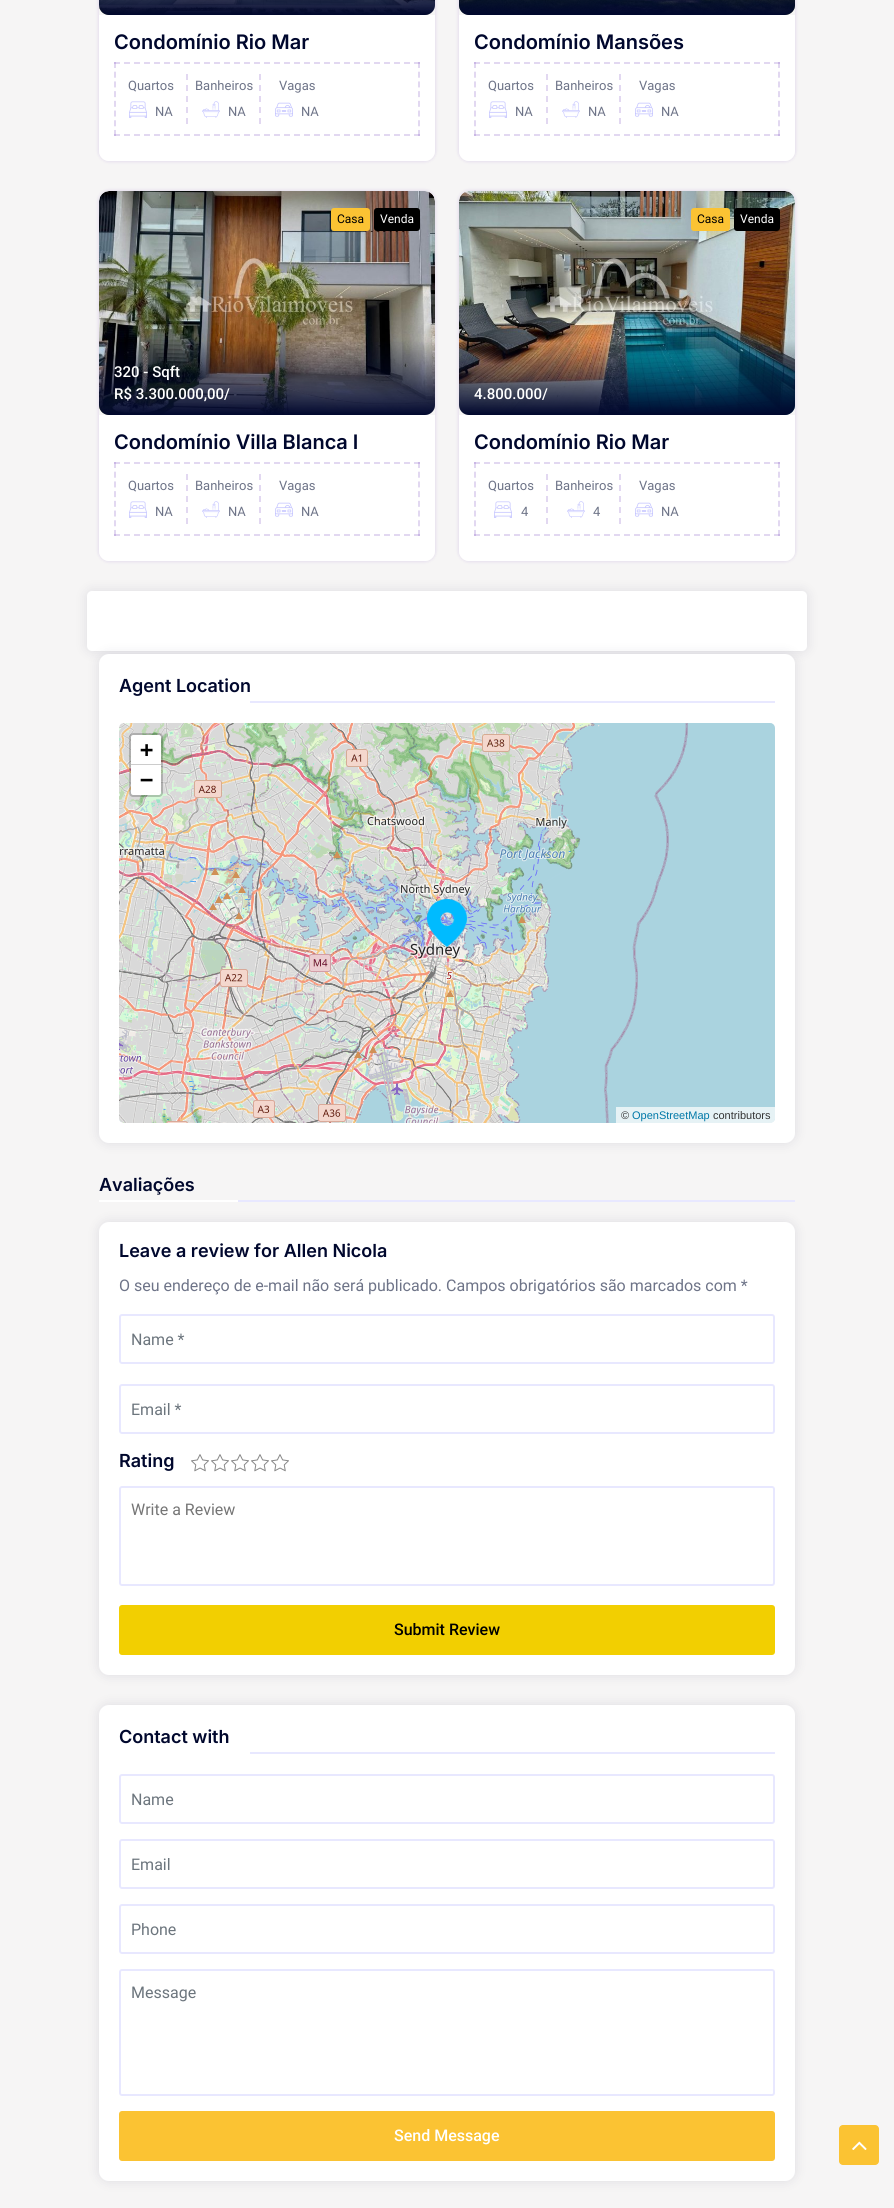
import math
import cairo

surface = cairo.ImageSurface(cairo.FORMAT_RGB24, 894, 2208)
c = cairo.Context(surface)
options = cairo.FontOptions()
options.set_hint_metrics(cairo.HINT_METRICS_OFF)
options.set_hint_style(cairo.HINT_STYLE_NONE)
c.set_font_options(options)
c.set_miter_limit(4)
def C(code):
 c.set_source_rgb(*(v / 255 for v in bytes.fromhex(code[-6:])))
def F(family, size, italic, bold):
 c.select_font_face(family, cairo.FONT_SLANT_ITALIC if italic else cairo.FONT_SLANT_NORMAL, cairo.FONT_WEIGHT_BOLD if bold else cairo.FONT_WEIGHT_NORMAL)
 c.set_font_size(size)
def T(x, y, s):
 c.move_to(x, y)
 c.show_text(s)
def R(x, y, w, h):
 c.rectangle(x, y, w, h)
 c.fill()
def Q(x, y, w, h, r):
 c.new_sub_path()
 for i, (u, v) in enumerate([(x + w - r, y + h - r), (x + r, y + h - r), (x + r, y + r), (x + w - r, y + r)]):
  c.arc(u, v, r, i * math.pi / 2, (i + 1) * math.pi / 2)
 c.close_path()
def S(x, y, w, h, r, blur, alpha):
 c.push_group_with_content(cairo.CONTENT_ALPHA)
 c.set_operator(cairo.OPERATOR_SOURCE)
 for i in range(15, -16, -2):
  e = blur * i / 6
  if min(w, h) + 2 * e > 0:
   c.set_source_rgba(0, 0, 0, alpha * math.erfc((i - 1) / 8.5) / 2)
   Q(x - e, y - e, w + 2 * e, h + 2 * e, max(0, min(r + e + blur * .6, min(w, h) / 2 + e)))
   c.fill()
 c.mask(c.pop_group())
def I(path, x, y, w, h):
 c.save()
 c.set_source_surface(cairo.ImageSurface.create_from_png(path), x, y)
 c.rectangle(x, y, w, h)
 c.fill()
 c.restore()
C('f6f5f5')
c.paint()
c.save()
c.set_fill_rule(cairo.FILL_RULE_EVEN_ODD)
c.new_path()
c.move_to(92,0)
c.line_to(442,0)
c.line_to(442,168)
c.line_to(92,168)
c.close_path()
c.move_to(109,-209)
c.line_to(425,-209)
c.curve_to(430.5,-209,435,-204.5,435,-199)
c.line_to(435,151)
c.curve_to(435,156.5,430.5,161,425,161)
c.line_to(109,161)
c.curve_to(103.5,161,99,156.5,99,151)
c.line_to(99,-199)
c.curve_to(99,-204.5,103.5,-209,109,-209)
c.close_path()
c.clip()
C('480ca8')
S(99,-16,336,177,10,2,.16)
c.restore()
I('1.png',99,0,336,15)
gradient = cairo.LinearGradient(267,15,267,-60)
gradient.add_color_stop_rgba(0,0,0.027,0.176,1)
gradient.add_color_stop_rgba(1,0,0.027,0.176,0)
c.set_source(gradient)
c.new_path()
c.move_to(99,-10)
c.line_to(435,-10)
c.line_to(435,5)
c.curve_to(435,10.5,430.5,15,425,15)
c.line_to(109,15)
c.curve_to(103.5,15,99,10.5,99,5)
c.close_path()
c.fill()
C('ffffff')
c.new_path()
c.move_to(99,15)
c.line_to(435,15)
c.line_to(435,151)
c.curve_to(435,156.5,430.5,161,425,161)
c.line_to(109,161)
c.curve_to(103.5,161,99,156.5,99,151)
c.close_path()
c.fill()
F('Inter SemiBold',20,0,0)
C('00072d')
T(114,49,'Condomínio Rio Mar')
c.new_path()
c.move_to(114,63)
c.line_to(420,63)
C('e2d8f1')
c.set_dash([6,4])
c.stroke()
c.new_path()
c.move_to(419,62)
c.line_to(419,136)
c.set_source_rgba(0.282,0.047,0.659,0.16)
c.set_dash([6,3.71])
c.stroke()
c.new_path()
c.move_to(114,135)
c.line_to(420,135)
c.set_dash([6,4])
c.stroke()
c.new_path()
c.move_to(115,62)
c.line_to(115,136)
c.set_dash([6,3.71])
c.stroke()
c.new_path()
c.move_to(187,74)
c.line_to(187,124)
C('e2d8f1')
c.set_dash([6,5])
c.stroke()
F('Roboto',13,0,0)
C('6e7488')
T(128,90,'Quartos')
I('2.png',129,101,18,17)
T(155,116,'NA')
c.new_path()
c.move_to(260,74)
c.line_to(260,124)
C('e2d8f1')
c.stroke()
C('6e7488')
T(195,90,'Banheiros')
I('3.png',202,101,18,17)
T(228,116,'NA')
T(279,90,'Vagas')
I('4.png',275,102,18,15)
T(301,116,'NA')
c.save()
c.set_fill_rule(cairo.FILL_RULE_EVEN_ODD)
c.new_path()
c.move_to(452,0)
c.line_to(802,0)
c.line_to(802,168)
c.line_to(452,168)
c.close_path()
c.move_to(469,-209)
c.line_to(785,-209)
c.curve_to(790.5,-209,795,-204.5,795,-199)
c.line_to(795,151)
c.curve_to(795,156.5,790.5,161,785,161)
c.line_to(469,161)
c.curve_to(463.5,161,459,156.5,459,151)
c.line_to(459,-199)
c.curve_to(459,-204.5,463.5,-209,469,-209)
c.close_path()
c.clip()
C('480ca8')
S(459,-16,336,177,10,2,.16)
c.restore()
I('5.png',459,0,336,15)
gradient = cairo.LinearGradient(627,15,627,-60)
gradient.add_color_stop_rgba(0,0,0.027,0.176,1)
gradient.add_color_stop_rgba(1,0,0.027,0.176,0)
c.set_source(gradient)
c.new_path()
c.move_to(459,-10)
c.line_to(795,-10)
c.line_to(795,5)
c.curve_to(795,10.5,790.5,15,785,15)
c.line_to(469,15)
c.curve_to(463.5,15,459,10.5,459,5)
c.close_path()
c.fill()
C('ffffff')
c.new_path()
c.move_to(459,15)
c.line_to(795,15)
c.line_to(795,151)
c.curve_to(795,156.5,790.5,161,785,161)
c.line_to(469,161)
c.curve_to(463.5,161,459,156.5,459,151)
c.close_path()
c.fill()
F('Inter SemiBold',20,0,0)
C('00072d')
T(474,49,'Condomínio Mansões')
c.new_path()
c.move_to(474,63)
c.line_to(780,63)
C('e2d8f1')
c.set_dash([6,4])
c.stroke()
c.new_path()
c.move_to(779,62)
c.line_to(779,136)
c.set_source_rgba(0.282,0.047,0.659,0.16)
c.set_dash([6,3.71])
c.stroke()
c.new_path()
c.move_to(474,135)
c.line_to(780,135)
c.set_dash([6,4])
c.stroke()
c.new_path()
c.move_to(475,62)
c.line_to(475,136)
c.set_dash([6,3.71])
c.stroke()
c.new_path()
c.move_to(547,74)
c.line_to(547,124)
C('e2d8f1')
c.set_dash([6,5])
c.stroke()
F('Roboto',13,0,0)
C('6e7488')
T(488,90,'Quartos')
I('2.png',489,101,18,17)
T(515,116,'NA')
c.new_path()
c.move_to(620,74)
c.line_to(620,124)
C('e2d8f1')
c.stroke()
C('6e7488')
T(555,90,'Banheiros')
I('3.png',562,101,18,17)
T(588,116,'NA')
T(639,90,'Vagas')
I('4.png',635,102,18,15)
T(661,116,'NA')
c.save()
c.set_fill_rule(cairo.FILL_RULE_EVEN_ODD)
c.new_path()
c.move_to(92,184)
c.line_to(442,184)
c.line_to(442,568)
c.line_to(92,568)
c.close_path()
c.move_to(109,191)
c.line_to(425,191)
c.curve_to(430.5,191,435,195.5,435,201)
c.line_to(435,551)
c.curve_to(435,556.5,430.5,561,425,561)
c.line_to(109,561)
c.curve_to(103.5,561,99,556.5,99,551)
c.line_to(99,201)
c.curve_to(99,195.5,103.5,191,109,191)
c.close_path()
c.clip()
C('480ca8')
S(99,191,336,370,10,2,.16)
c.restore()
I('6.png',99,191,336,224)
C('fbc333')
Q(331,208,39,23,3)
c.fill()
F('Roboto',12,0,0)
C('000000')
T(337,223,'Casa')
Q(374,208,46,23,3)
c.fill()
C('ffffff')
T(380,223,'Venda')
gradient = cairo.LinearGradient(267,415,267,340)
gradient.add_color_stop_rgba(0,0,0.027,0.176,1)
gradient.add_color_stop_rgba(1,0,0.027,0.176,0)
c.set_source(gradient)
c.new_path()
c.move_to(99,340)
c.line_to(435,340)
c.line_to(435,405)
c.curve_to(435,410.5,430.5,415,425,415)
c.line_to(109,415)
c.curve_to(103.5,415,99,410.5,99,405)
c.close_path()
c.fill()
F('Roboto Medium',15,0,0)
C('ffffff')
T(114,377,'320 - Sqft')
T(114,399,'R$ 3.300.000,00/')
c.new_path()
c.move_to(99,415)
c.line_to(435,415)
c.line_to(435,551)
c.curve_to(435,556.5,430.5,561,425,561)
c.line_to(109,561)
c.curve_to(103.5,561,99,556.5,99,551)
c.close_path()
c.fill()
F('Inter SemiBold',20,0,0)
C('00072d')
T(114,449,'Condomínio Villa Blanca I')
c.new_path()
c.move_to(114,463)
c.line_to(420,463)
C('e2d8f1')
c.set_dash([6,4])
c.stroke()
c.new_path()
c.move_to(419,462)
c.line_to(419,536)
c.set_source_rgba(0.282,0.047,0.659,0.16)
c.set_dash([6,3.71])
c.stroke()
c.new_path()
c.move_to(114,535)
c.line_to(420,535)
c.set_dash([6,4])
c.stroke()
c.new_path()
c.move_to(115,462)
c.line_to(115,536)
c.set_dash([6,3.71])
c.stroke()
c.new_path()
c.move_to(187,474)
c.line_to(187,524)
C('e2d8f1')
c.set_dash([6,5])
c.stroke()
F('Roboto',13,0,0)
C('6e7488')
T(128,490,'Quartos')
I('2.png',129,501,18,17)
T(155,516,'NA')
c.new_path()
c.move_to(260,474)
c.line_to(260,524)
C('e2d8f1')
c.stroke()
C('6e7488')
T(195,490,'Banheiros')
I('3.png',202,501,18,17)
T(228,516,'NA')
T(279,490,'Vagas')
I('4.png',275,502,18,15)
T(301,516,'NA')
c.save()
c.set_fill_rule(cairo.FILL_RULE_EVEN_ODD)
c.new_path()
c.move_to(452,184)
c.line_to(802,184)
c.line_to(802,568)
c.line_to(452,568)
c.close_path()
c.move_to(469,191)
c.line_to(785,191)
c.curve_to(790.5,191,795,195.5,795,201)
c.line_to(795,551)
c.curve_to(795,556.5,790.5,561,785,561)
c.line_to(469,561)
c.curve_to(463.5,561,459,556.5,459,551)
c.line_to(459,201)
c.curve_to(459,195.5,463.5,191,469,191)
c.close_path()
c.clip()
C('480ca8')
S(459,191,336,370,10,2,.16)
c.restore()
I('7.png',459,191,336,224)
C('fbc333')
Q(691,208,39,23,3)
c.fill()
F('Roboto',12,0,0)
C('000000')
T(697,223,'Casa')
Q(734,208,46,23,3)
c.fill()
C('ffffff')
T(740,223,'Venda')
gradient = cairo.LinearGradient(627,415,627,340)
gradient.add_color_stop_rgba(0,0,0.027,0.176,1)
gradient.add_color_stop_rgba(1,0,0.027,0.176,0)
c.set_source(gradient)
c.new_path()
c.move_to(459,340)
c.line_to(795,340)
c.line_to(795,405)
c.curve_to(795,410.5,790.5,415,785,415)
c.line_to(469,415)
c.curve_to(463.5,415,459,410.5,459,405)
c.close_path()
c.fill()
F('Roboto Medium',15,0,0)
C('ffffff')
T(474,399,'4.800.000/')
c.new_path()
c.move_to(459,415)
c.line_to(795,415)
c.line_to(795,551)
c.curve_to(795,556.5,790.5,561,785,561)
c.line_to(469,561)
c.curve_to(463.5,561,459,556.5,459,551)
c.close_path()
c.fill()
F('Inter SemiBold',20,0,0)
C('00072d')
T(474,449,'Condomínio Rio Mar')
c.new_path()
c.move_to(474,463)
c.line_to(780,463)
C('e2d8f1')
c.set_dash([6,4])
c.stroke()
c.new_path()
c.move_to(779,462)
c.line_to(779,536)
c.set_source_rgba(0.282,0.047,0.659,0.16)
c.set_dash([6,3.71])
c.stroke()
c.new_path()
c.move_to(474,535)
c.line_to(780,535)
c.set_dash([6,4])
c.stroke()
c.new_path()
c.move_to(475,462)
c.line_to(475,536)
c.set_dash([6,3.71])
c.stroke()
c.new_path()
c.move_to(547,474)
c.line_to(547,524)
C('e2d8f1')
c.set_dash([6,5])
c.stroke()
F('Roboto',13,0,0)
C('6e7488')
T(488,490,'Quartos')
I('2.png',494,501,18,17)
T(521,516,'4')
c.new_path()
c.move_to(620,474)
c.line_to(620,524)
C('e2d8f1')
c.stroke()
C('6e7488')
T(555,490,'Banheiros')
I('3.png',567,501,18,17)
T(593,516,'4')
T(639,490,'Vagas')
I('4.png',635,502,18,15)
T(661,516,'NA')
C('00072d')
S(87,591,720,60,5,6,.1)
C('ffffff')
Q(87,591,720,60,5)
c.fill()
C('00072d')
S(99,654,696,489,10,6,.1)
C('ffffff')
Q(99,654,696,489,10)
c.fill()
F('Inter SemiBold',18,0,0)
C('00072d')
T(119,692,'Agent Location')
C('e8e8ff')
R(250,701,525,2)
I('8.png',119,723,7,227)
I('9.png',126,723,256,227)
I('10.png',382,723,256,227)
I('11.png',638,723,137,227)
I('12.png',119,950,7,173)
I('13.png',126,950,256,173)
I('14.png',382,950,256,173)
I('15.png',638,950,137,173)
I('16.png',427,899,40,48)
c.set_source_rgba(0,0,0,0.2)
c.new_path()
c.move_to(133,733)
c.line_to(159,733)
c.curve_to(161,733,163,735,163,737)
c.line_to(163,793)
c.curve_to(163,795,161,797,159,797)
c.line_to(133,797)
c.curve_to(131,797,129,795,129,793)
c.line_to(129,737)
c.curve_to(129,735,131,733,133,733)
c.close_path()
c.fill()
C('ffffff')
c.new_path()
c.move_to(133,735)
c.line_to(159,735)
c.curve_to(160,735,161,736,161,737)
c.line_to(161,765)
c.line_to(131,765)
c.line_to(131,737)
c.curve_to(131,736,132,735,133,735)
c.close_path()
c.fill()
C('cccccc')
R(131,764,30,1)
F('DejaVu Sans Mono',22,0,1)
C('000000')
T(140,757,'+')
C('ffffff')
c.new_path()
c.move_to(131,765)
c.line_to(161,765)
c.line_to(161,793)
c.curve_to(161,794,160,795,159,795)
c.line_to(133,795)
c.curve_to(132,795,131,794,131,793)
c.close_path()
c.fill()
C('000000')
T(140,787,'−')
c.set_source_rgba(1,1,1,0.7)
c.new_path()
c.move_to(616,1107)
c.line_to(775,1107)
c.line_to(775,1118)
c.curve_to(775,1121,773,1123,770,1123)
c.line_to(616,1123)
c.close_path()
c.fill()
F('Liberation Sans',11,0,0)
C('333333')
T(621,1119,'©')
C('0078a8')
T(632,1119,'OpenStreetMap')
C('333333')
T(713,1119,'contributors')
F('Inter SemiBold',18,0,0)
C('00072d')
T(99,1191,'Avaliações')
C('ffffff')
R(99,1200,139,2)
C('e8e8ff')
R(238,1200,557,2)
C('00072d')
S(99,1222,696,453,10,6,.1)
C('ffffff')
Q(99,1222,696,453,10)
c.fill()
C('00072d')
T(119,1257,'Leave a review for Allen Nicola')
F('Roboto',16,0,0)
C('6e7488')
T(119,1291,'O seu endereço de e-mail não será publicado. Campos obrigatórios são marcados com *')
Q(120,1315,654,48,2)
C('e8e8ff')
c.set_dash([])
c.stroke()
C('6c757d')
T(131,1345,'Name *')
Q(120,1385,654,48,2)
C('e8e8ff')
c.stroke()
C('6c757d')
T(131,1415,'Email *')
F('Inter SemiBold',18,0,0)
C('00072d')
T(119,1467,'Rating')
I('17.png',191,1454,18,18)
I('17.png',211,1454,18,18)
I('17.png',231,1454,18,18)
I('17.png',251,1454,18,18)
I('17.png',271,1454,18,18)
Q(120,1487,654,98,2)
C('e8e8ff')
c.stroke()
F('Roboto',16,0,0)
C('757575')
T(131,1515,'Write a Review')
C('f2cf01')
Q(119,1605,656,50,3)
c.fill()
F('Roboto Medium',16,0,0)
C('000000')
T(394,1635,'Submit Review')
C('00072d')
S(99,1705,696,476,10,6,.1)
C('ffffff')
Q(99,1705,696,476,10)
c.fill()
F('Inter SemiBold',18,0,0)
C('00072d')
T(119,1743,'Contact with')
C('e8e8ff')
R(250,1752,525,2)
Q(120,1775,654,48,2)
c.stroke()
F('Roboto',16,0,0)
C('6c757d')
T(131,1805,'Name')
Q(120,1840,654,48,2)
C('e8e8ff')
c.stroke()
C('6c757d')
T(131,1870,'Email')
Q(120,1905,654,48,2)
C('e8e8ff')
c.stroke()
C('6c757d')
T(131,1935,'Phone')
Q(120,1970,654,125,2)
C('e8e8ff')
c.stroke()
C('6c757d')
T(131,1998,'Message')
C('fbc333')
Q(120,2112,654,48,2)
c.fill_preserve()
c.stroke()
F('Roboto Medium',16,0,0)
C('ffffff')
T(394,2141,'Send Message')
C('fbc333')
Q(839,2125,40,40,4)
c.fill()
I('18.png',852,2141,15,9)
surface.write_to_png('o.png')
